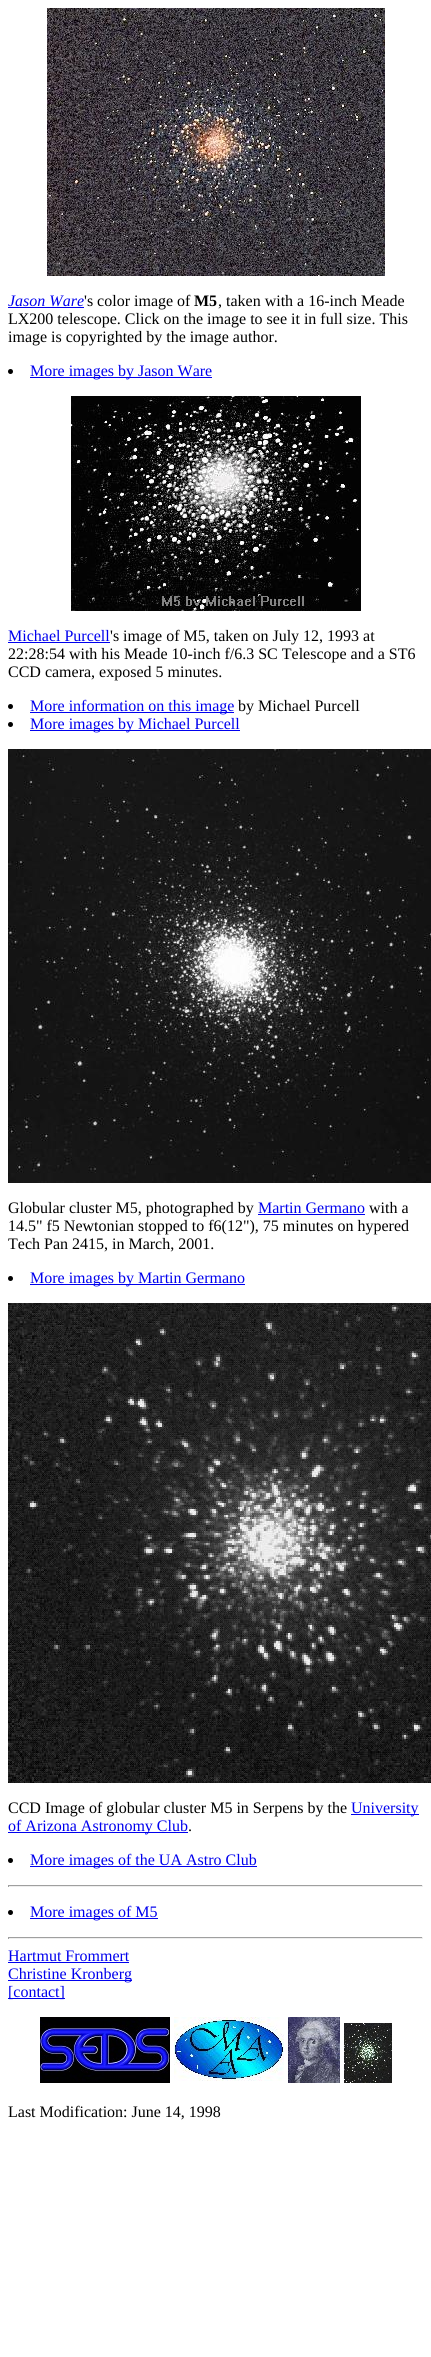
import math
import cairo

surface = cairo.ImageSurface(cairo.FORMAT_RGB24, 431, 2357)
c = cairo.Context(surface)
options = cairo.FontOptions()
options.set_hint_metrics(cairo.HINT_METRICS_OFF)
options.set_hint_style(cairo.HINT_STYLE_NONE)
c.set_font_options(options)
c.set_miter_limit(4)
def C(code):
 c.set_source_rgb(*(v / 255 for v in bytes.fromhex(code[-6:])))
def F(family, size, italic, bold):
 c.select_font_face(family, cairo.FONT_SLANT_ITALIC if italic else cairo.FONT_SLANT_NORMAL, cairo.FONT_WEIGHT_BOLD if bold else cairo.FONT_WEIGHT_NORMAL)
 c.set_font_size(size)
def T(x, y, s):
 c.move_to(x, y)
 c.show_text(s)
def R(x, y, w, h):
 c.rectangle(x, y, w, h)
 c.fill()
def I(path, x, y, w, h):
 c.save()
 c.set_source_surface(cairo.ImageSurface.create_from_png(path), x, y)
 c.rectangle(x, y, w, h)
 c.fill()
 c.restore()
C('ffffff')
c.paint()
I('1.png',47,8,338,268)
F('Liberation Serif',16,1,0)
C('0000ee')
T(8,306,'Jason Ware')
R(8,307,76,1)
F('Liberation Serif',16,0,0)
C('000000')
T(84,306,'\'s color image of')
F('Liberation Serif',16,0,1)
T(194,306,'M5')
F('Liberation Serif',16,0,0)
T(218,306,', taken with a 16-inch Meade')
T(8,324,'LX200 telescope. Click on the image to see it in full size. This')
T(8,342,'image is copyrighted by the image author.')
c.new_path()
c.arc(10.5,371.5,2.5,0,2 * math.pi)
c.fill()
C('0000ee')
R(30,377,182,1)
T(30,376,'More images by Jason Ware')
I('2.png',71,396,290,215)
T(8,641,'Michael Purcell')
R(8,642,102,1)
C('000000')
T(110,641,'\'s image of M5, taken on July 12, 1993 at')
T(8,659,'22:28:54 with his Meade 10-inch f/6.3 SC Telescope and a ST6')
T(8,677,'CCD camera, exposed 5 minutes.')
c.new_path()
c.arc(10.5,706.5,2.5,0,2 * math.pi)
c.fill()
C('0000ee')
R(30,712,204,1)
T(30,711,'More information on this image')
C('000000')
T(238,711,'by Michael Purcell')
c.new_path()
c.arc(10.5,724.5,2.5,0,2 * math.pi)
c.fill()
C('0000ee')
R(30,730,210,1)
T(30,729,'More images by Michael Purcell')
I('3.png',8,749,423,434)
C('000000')
T(8,1213,'Globular cluster M5, photographed by')
C('0000ee')
T(258,1213,'Martin Germano')
R(258,1214,107,1)
C('000000')
T(369,1213,'with a')
T(8,1231,'14.5" f5 Newtonian stopped to f6(12"), 75 minutes on hypered')
T(8,1249,'Tech Pan 2415, in March, 2001.')
c.new_path()
c.arc(10.5,1278.5,2.5,0,2 * math.pi)
c.fill()
C('0000ee')
R(30,1284,215,1)
T(30,1283,'More images by Martin Germano')
I('4.png',8,1303,423,480)
C('000000')
T(8,1813,'CCD Image of globular cluster M5 in Serpens by the')
C('0000ee')
R(351,1814,68,1)
T(351,1813,'University')
R(8,1832,180,1)
T(8,1831,'of Arizona Astronomy Club')
C('000000')
T(188,1831,'.')
c.new_path()
c.arc(10.5,1860.5,2.5,0,2 * math.pi)
c.fill()
C('0000ee')
R(30,1866,227,1)
T(30,1865,'More images of the UA Astro Club')
C('9f9f9f')
R(8,1885,415,1)
C('eeeeee')
R(422,1885,1,2)
R(8,1886,415,1)
C('9f9f9f')
R(8,1885,1,2)
C('000000')
c.new_path()
c.arc(10.5,1912.5,2.5,0,2 * math.pi)
c.fill()
C('0000ee')
R(30,1918,128,1)
T(30,1917,'More images of M5')
C('9f9f9f')
R(8,1937,415,1)
C('eeeeee')
R(422,1937,1,2)
R(8,1938,415,1)
C('9f9f9f')
R(8,1937,1,2)
C('0000ee')
T(8,1961,'Hartmut Frommert')
R(8,1962,121,1)
R(8,1980,124,1)
T(8,1979,'Christine Kronberg')
R(8,1998,57,1)
T(8,1997,'[contact]')
I('5.png',40,2017,130,66)
I('6.png',174,2017,110,64)
I('7.png',288,2017,52,66)
I('8.png',344,2023,48,60)
C('000000')
T(8,2117,'Last Modification: June 14, 1998')
surface.write_to_png('o.png')
